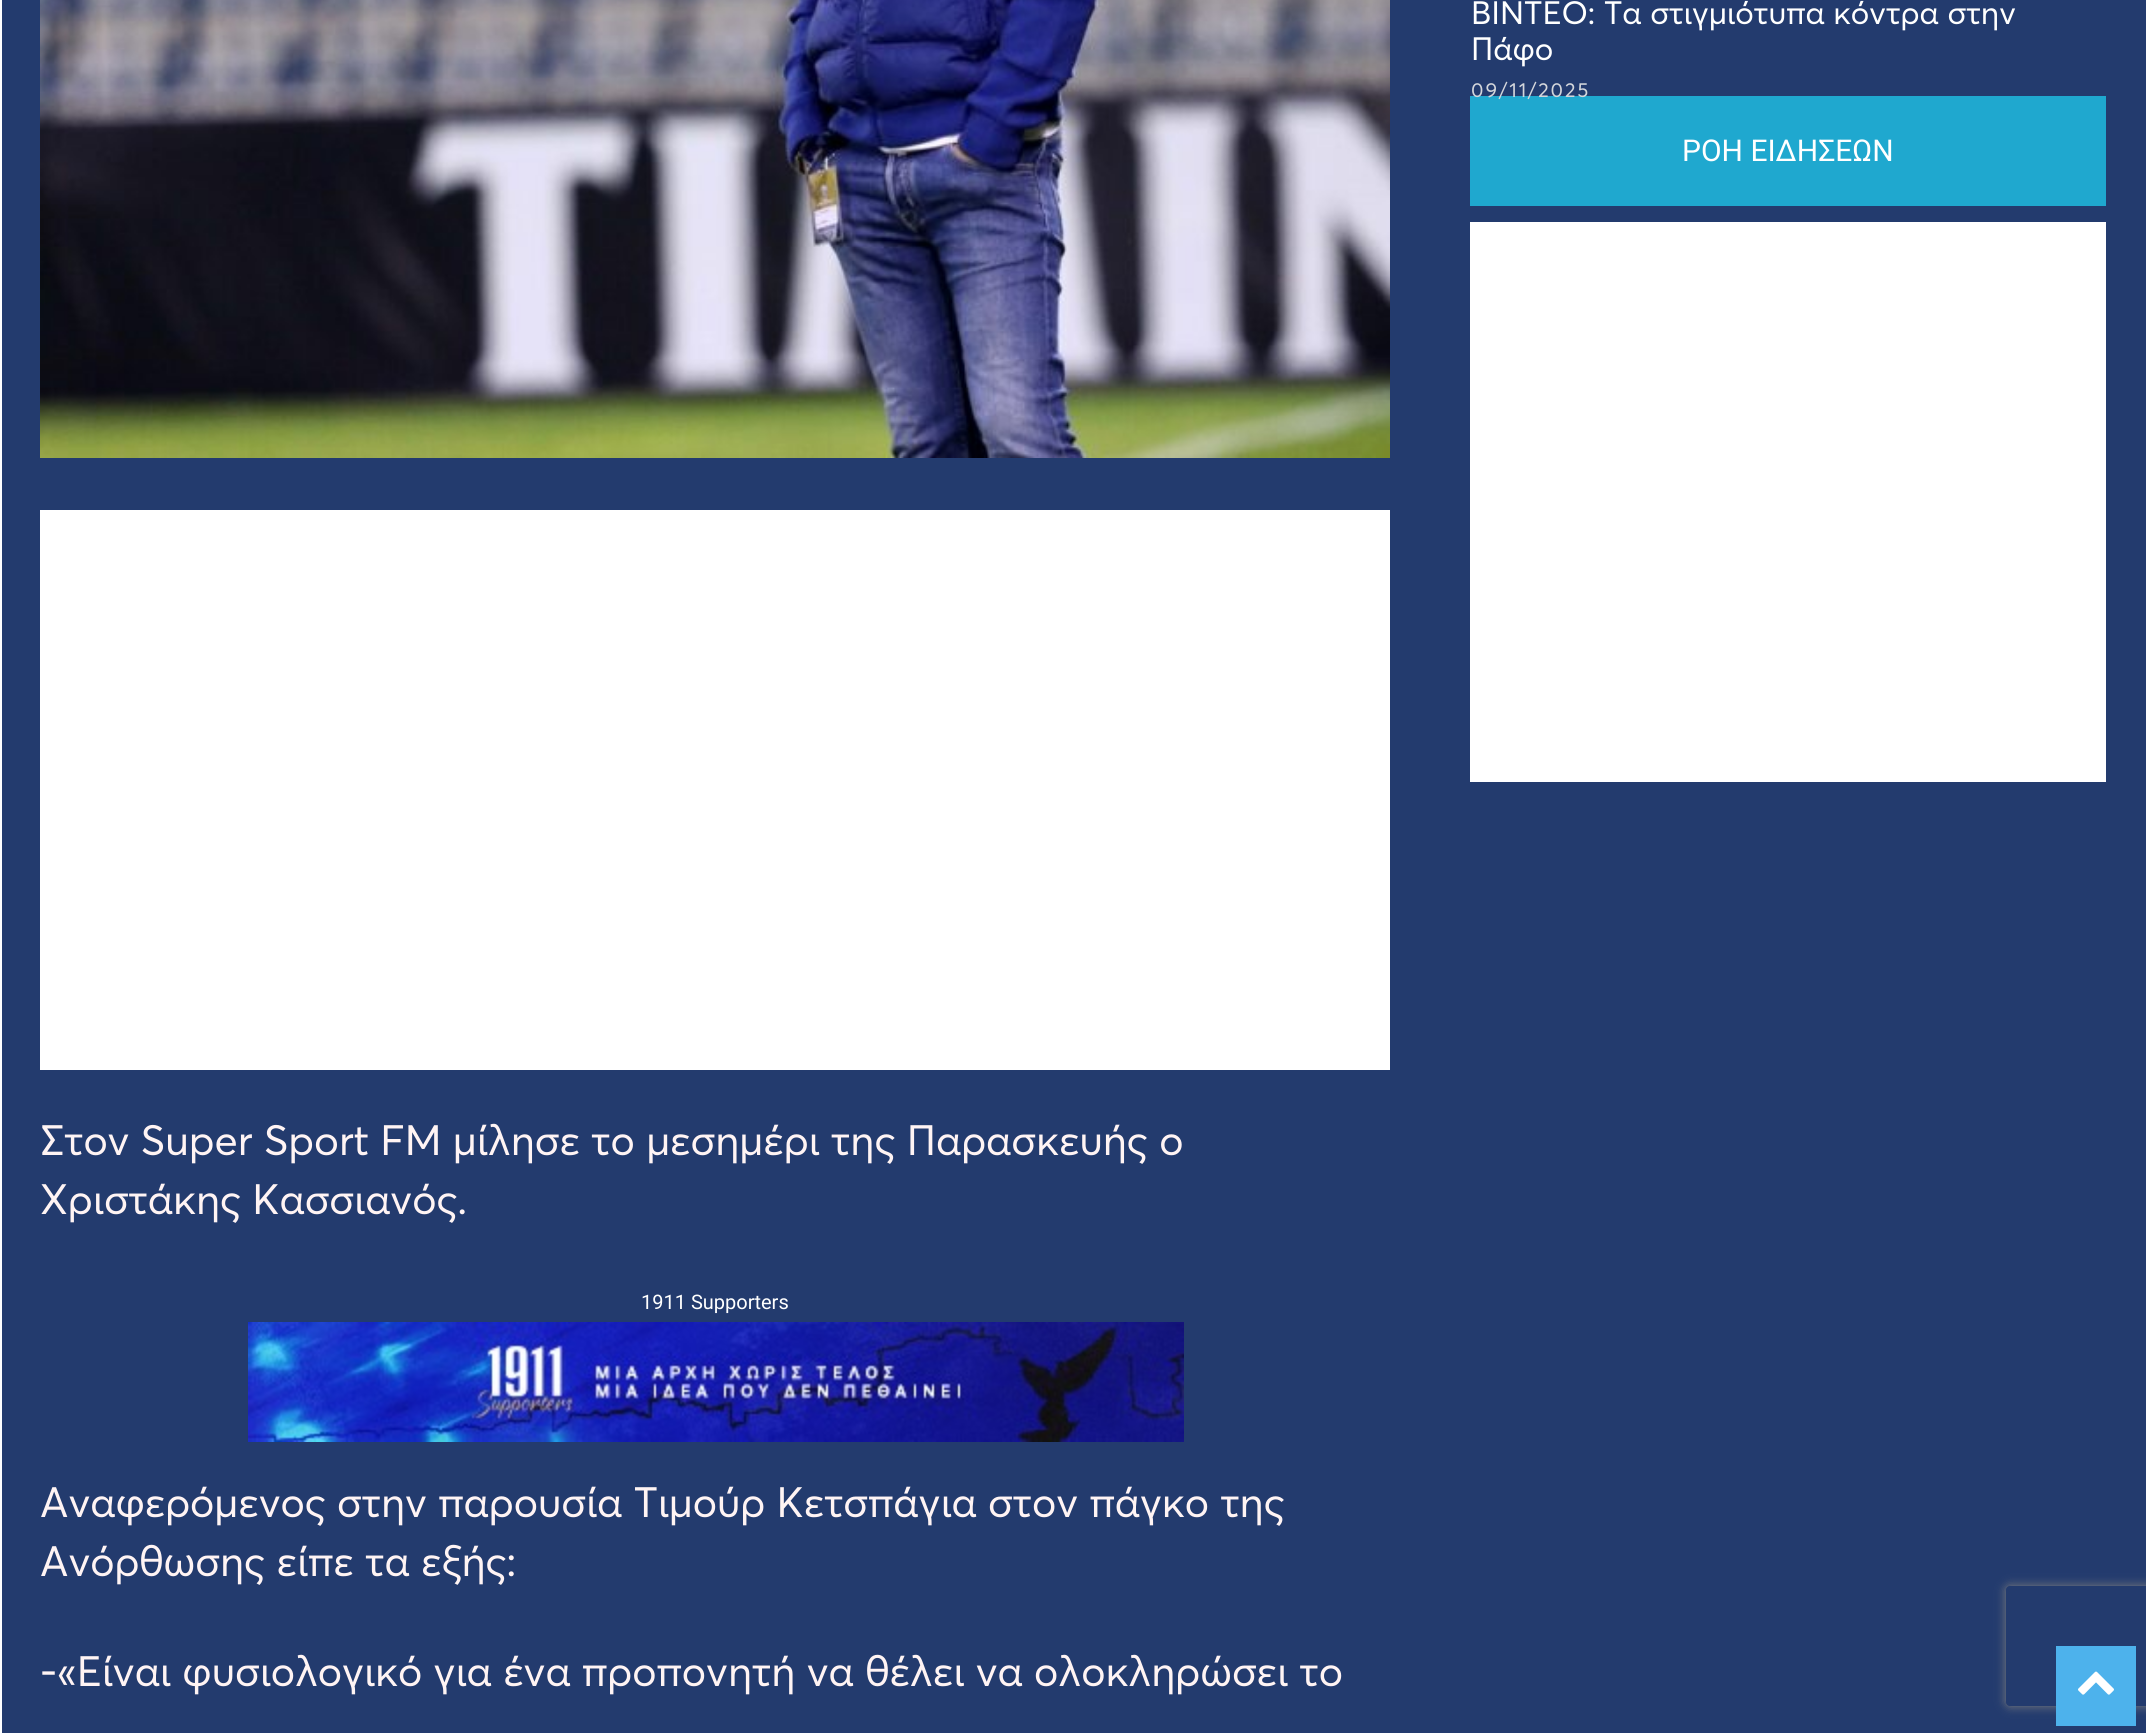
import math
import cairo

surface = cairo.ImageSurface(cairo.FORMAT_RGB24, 2146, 1733)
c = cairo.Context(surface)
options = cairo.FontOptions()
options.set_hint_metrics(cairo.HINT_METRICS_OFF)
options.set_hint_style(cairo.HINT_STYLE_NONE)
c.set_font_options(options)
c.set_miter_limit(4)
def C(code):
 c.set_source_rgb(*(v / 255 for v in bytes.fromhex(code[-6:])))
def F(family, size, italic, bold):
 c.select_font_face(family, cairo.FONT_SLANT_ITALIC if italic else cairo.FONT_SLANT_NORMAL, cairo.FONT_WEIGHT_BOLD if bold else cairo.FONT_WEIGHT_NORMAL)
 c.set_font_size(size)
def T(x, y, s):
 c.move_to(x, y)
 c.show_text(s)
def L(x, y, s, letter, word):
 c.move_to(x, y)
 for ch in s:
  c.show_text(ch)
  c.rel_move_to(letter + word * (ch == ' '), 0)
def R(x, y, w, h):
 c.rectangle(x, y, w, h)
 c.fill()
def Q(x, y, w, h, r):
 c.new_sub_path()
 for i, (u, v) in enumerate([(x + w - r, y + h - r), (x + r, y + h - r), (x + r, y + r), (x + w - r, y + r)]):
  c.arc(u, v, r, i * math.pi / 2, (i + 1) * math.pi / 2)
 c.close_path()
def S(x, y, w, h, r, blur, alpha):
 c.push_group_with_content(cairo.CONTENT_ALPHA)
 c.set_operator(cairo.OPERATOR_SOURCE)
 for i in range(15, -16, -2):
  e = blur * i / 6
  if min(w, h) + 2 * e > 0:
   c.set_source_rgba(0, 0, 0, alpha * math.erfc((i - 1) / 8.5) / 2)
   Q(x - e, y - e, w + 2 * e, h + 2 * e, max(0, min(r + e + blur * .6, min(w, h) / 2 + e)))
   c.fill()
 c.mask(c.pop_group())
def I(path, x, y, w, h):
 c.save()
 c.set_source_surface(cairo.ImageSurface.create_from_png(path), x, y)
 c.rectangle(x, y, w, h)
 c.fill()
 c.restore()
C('ffffff')
c.paint()
C('233b6e')
R(2,0,2144,1733)
F('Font',32,0,0)
C('ffffff')
T(1471,24,'ΒΙΝΤΕΟ: Τα στιγμιότυπα κόντρα στην')
T(1471,60,'Πάφο')
C('1fa8cf')
R(1470,96,636,110)
F('Font',20,0,0)
C('d3d6db')
L(1471,97,'09/11/2025',2,0)
F('Roboto',30,0,0)
C('ffffff')
T(1682,161,'ΡΟΗ ΕΙΔΗΣΕΩΝ')
R(1470,222,636,560)
I('1.png',40,0,1350,458)
R(40,510,1350,560)
F('Font',42,0,0)
C('fff4f4')
T(40,1155,'Στον Super Sport FM μίλησε το μεσημέρι της Παρασκευής ο')
T(40,1214,'Χριστάκης Κασσιανός.')
F('Roboto',20,0,0)
C('ffffff')
T(641,1309,'1911 Supporters')
I('2.png',248,1322,936,120)
F('Font',42,0,0)
C('fff4f4')
T(40,1517,'Αναφερόμενος στην παρουσία Τιμούρ Κετσπάγια στον πάγκο της')
T(40,1576,'Ανόρθωσης είπε τα εξής:')
T(40,1686,'-«Είναι φυσιολογικό για ένα προπονητή να θέλει να ολοκληρώσει το')
c.save()
c.set_fill_rule(cairo.FILL_RULE_EVEN_ODD)
c.new_path()
c.move_to(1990,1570)
c.line_to(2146,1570)
c.line_to(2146,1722)
c.line_to(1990,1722)
c.close_path()
c.move_to(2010,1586)
c.line_to(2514,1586)
c.curve_to(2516,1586,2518,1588,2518,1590)
c.line_to(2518,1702)
c.curve_to(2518,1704,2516,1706,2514,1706)
c.line_to(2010,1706)
c.curve_to(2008,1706,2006,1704,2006,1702)
c.line_to(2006,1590)
c.curve_to(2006,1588,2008,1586,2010,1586)
c.close_path()
c.clip()
C('808080')
S(2006,1586,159,120,4,5,1)
c.restore()
C('4db2ec')
R(2056,1646,80,80)
I('3.png',2078,1671,36,24)
surface.write_to_png('o.png')
